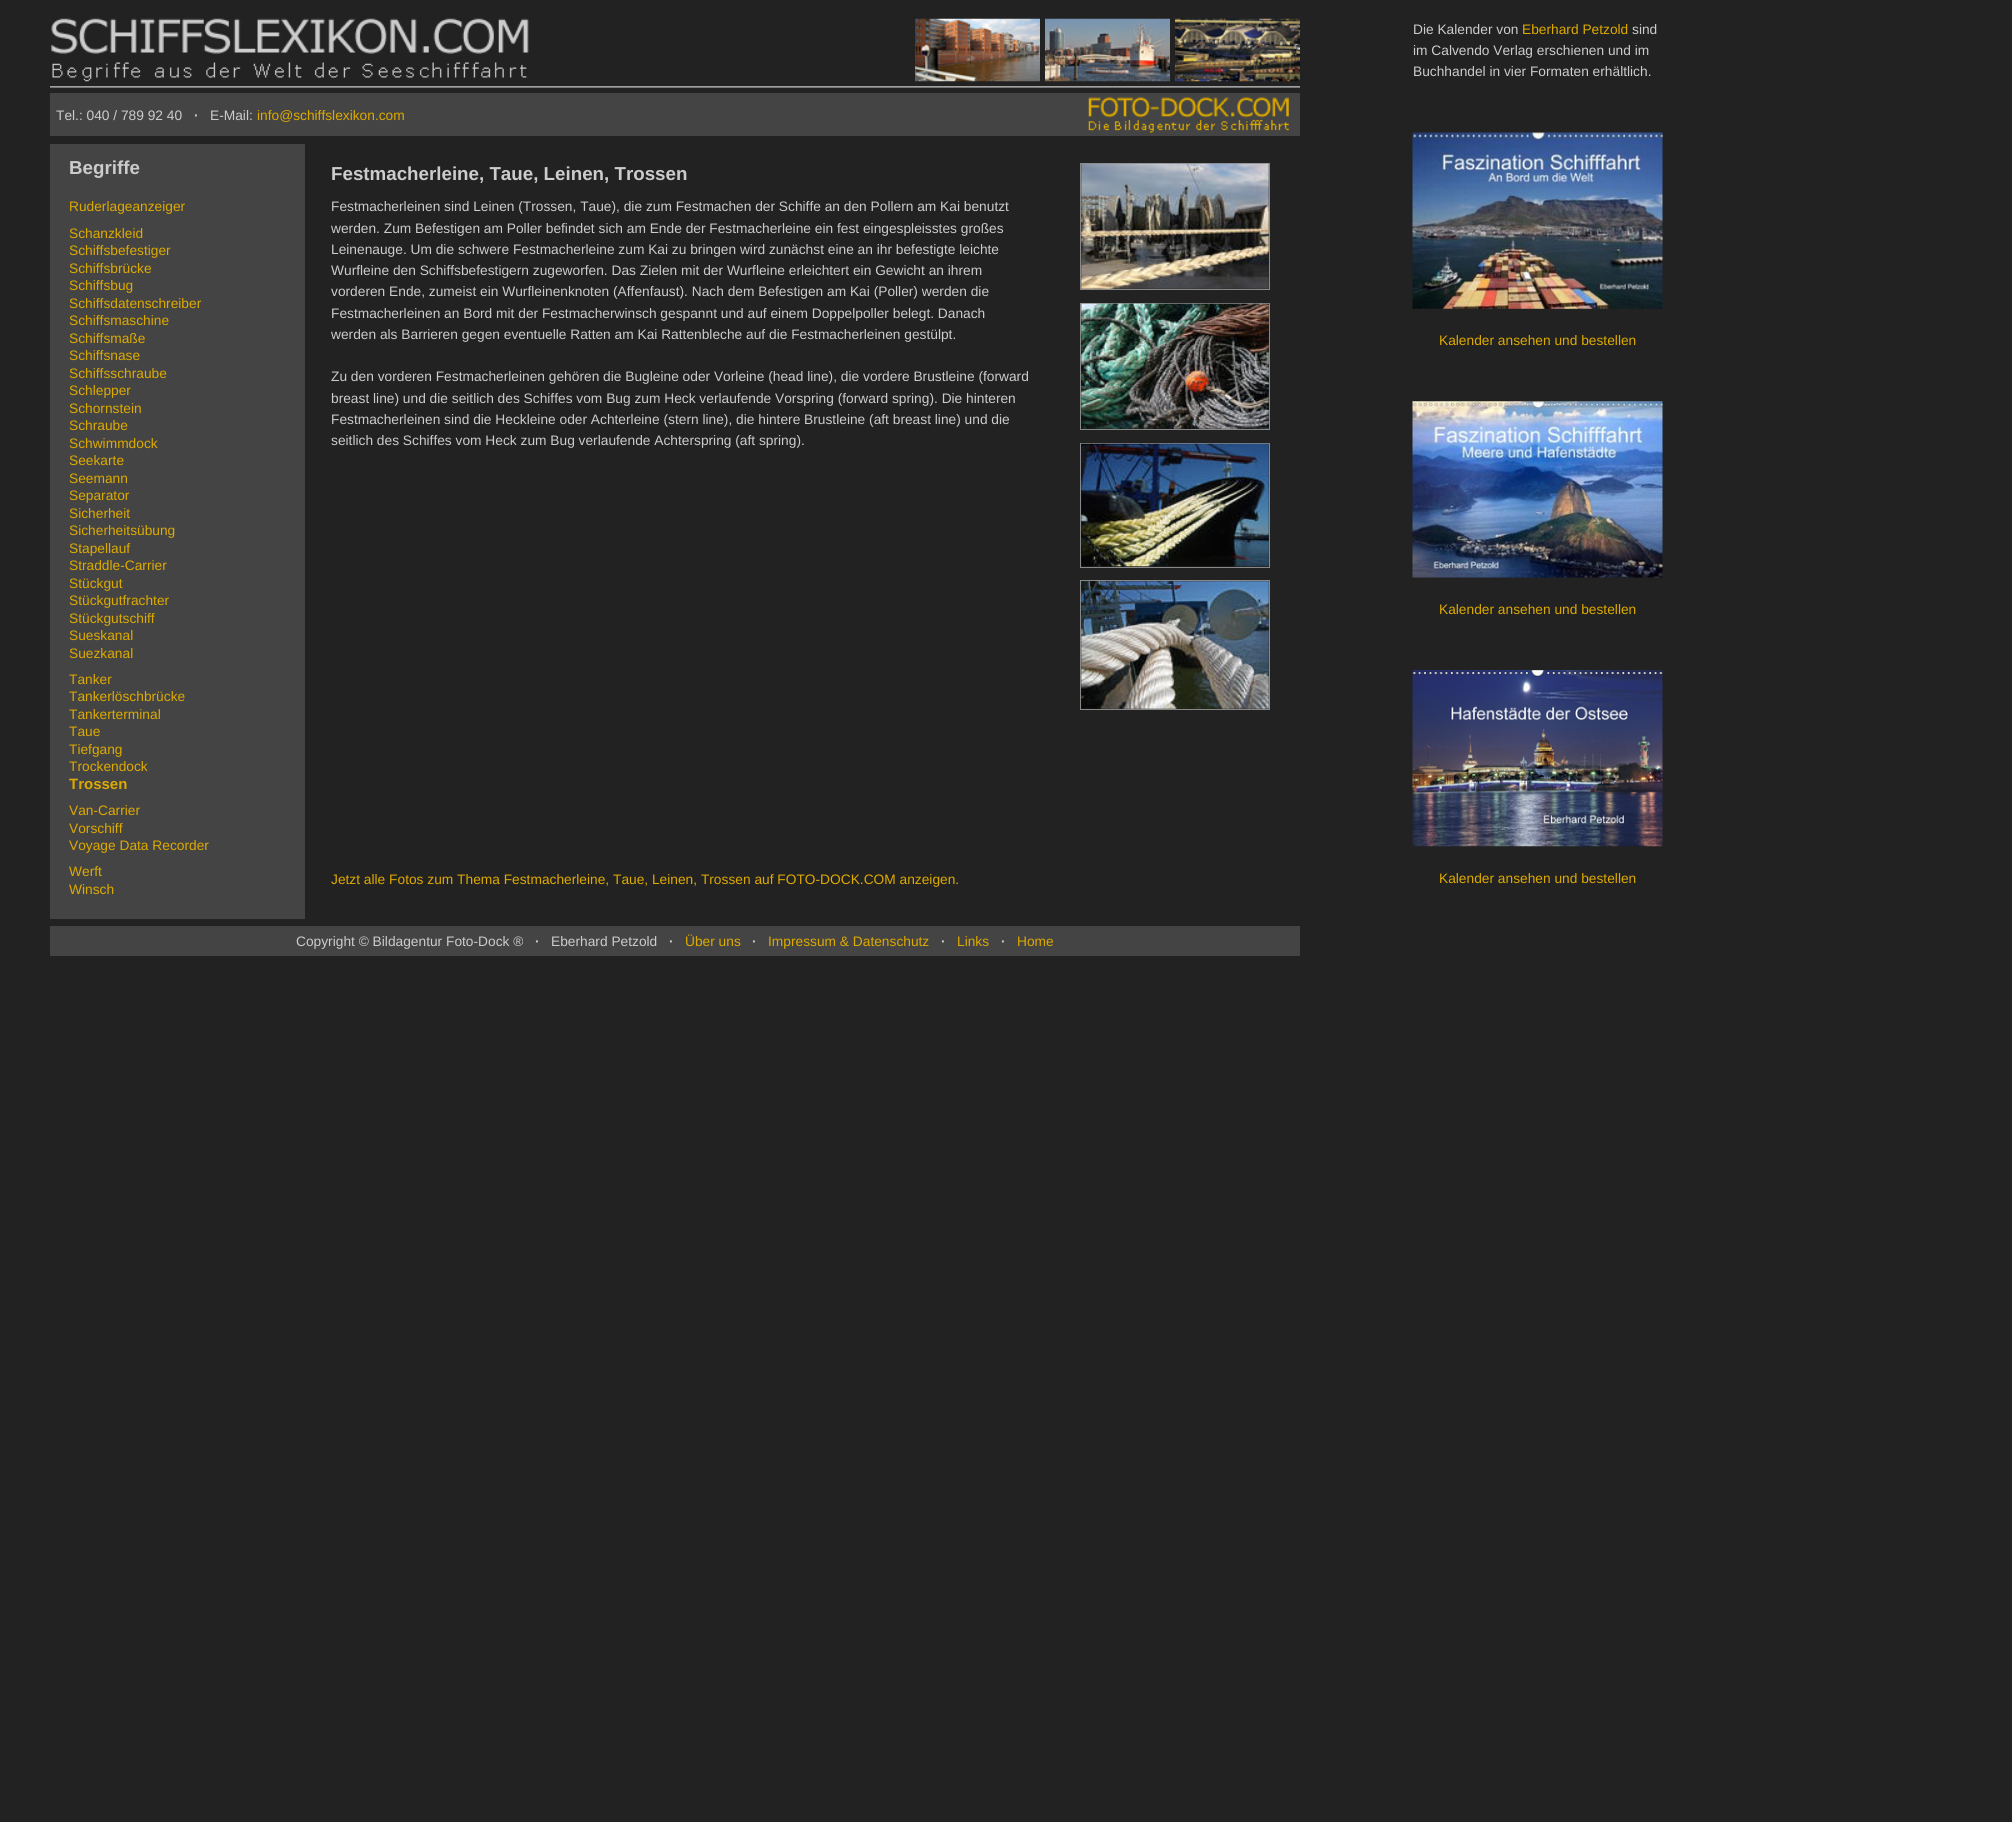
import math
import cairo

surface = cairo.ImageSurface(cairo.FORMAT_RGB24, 2012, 1822)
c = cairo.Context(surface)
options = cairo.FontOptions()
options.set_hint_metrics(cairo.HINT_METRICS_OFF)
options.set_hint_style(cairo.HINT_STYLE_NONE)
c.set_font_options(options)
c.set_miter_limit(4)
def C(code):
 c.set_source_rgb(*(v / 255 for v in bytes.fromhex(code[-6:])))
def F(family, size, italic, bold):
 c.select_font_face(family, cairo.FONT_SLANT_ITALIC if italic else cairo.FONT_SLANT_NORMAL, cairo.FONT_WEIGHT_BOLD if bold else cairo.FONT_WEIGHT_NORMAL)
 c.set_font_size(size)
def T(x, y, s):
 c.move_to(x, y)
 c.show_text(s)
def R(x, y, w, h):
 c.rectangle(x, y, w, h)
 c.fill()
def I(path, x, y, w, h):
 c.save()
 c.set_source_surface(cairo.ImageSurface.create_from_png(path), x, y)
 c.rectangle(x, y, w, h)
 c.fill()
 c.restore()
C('222222')
c.paint()
I('1.png',51,18,478,64)
I('2.png',915,18,125,64)
I('3.png',1045,18,125,64)
I('4.png',1175,18,125,64)
F('Liberation Sans',13.75,0,0)
C('cccccc')
T(1413,34,'Die Kalender von')
C('ddaa00')
T(1522,34,'Eberhard Petzold')
C('cccccc')
T(1632,34,'sind')
T(1413,55,'im Calvendo Verlag erschienen und im')
T(1413,76,'Buchhandel in vier Formaten erhältlich.')
I('5.png',1412,132,251,177)
C('ddaa00')
T(1439,345,'Kalender ansehen und bestellen')
I('6.png',1412,401,251,177)
T(1439,614,'Kalender ansehen und bestellen')
I('7.png',1412,670,251,177)
T(1439,883,'Kalender ansehen und bestellen')
I('8.png',50,86,1250,2)
C('444444')
R(50,93,1250,43)
C('cccccc')
T(56,120,'Tel.: 040 / 789 92 40')
F('Liberation Sans',13.75,0,1)
T(194,120,'·')
F('Liberation Sans',13.75,0,0)
T(210,120,'E-Mail:')
C('ddaa00')
T(257,120,'info@schiffslexikon.com')
I('9.png',1088,97,201,36)
C('444444')
R(50,144,255,775)
F('Liberation Sans',18.75,0,1)
C('cccccc')
T(69,174,'Begriffe')
F('Liberation Sans',13.75,0,0)
C('ddaa00')
T(69,211,'Ruderlageanzeiger')
T(69,238,'Schanzkleid')
T(69,255,'Schiffsbefestiger')
T(69,273,'Schiffsbrücke')
T(69,290,'Schiffsbug')
T(69,308,'Schiffsdatenschreiber')
T(69,325,'Schiffsmaschine')
T(69,343,'Schiffsmaße')
T(69,360,'Schiffsnase')
T(69,378,'Schiffsschraube')
T(69,395,'Schlepper')
T(69,413,'Schornstein')
T(69,430,'Schraube')
T(69,448,'Schwimmdock')
T(69,465,'Seekarte')
T(69,483,'Seemann')
T(69,500,'Separator')
T(69,518,'Sicherheit')
T(69,535,'Sicherheitsübung')
T(69,553,'Stapellauf')
T(69,570,'Straddle-Carrier')
T(69,588,'Stückgut')
T(69,605,'Stückgutfrachter')
T(69,623,'Stückgutschiff')
T(69,640,'Sueskanal')
T(69,658,'Suezkanal')
T(69,684,'Tanker')
T(69,701,'Tankerlöschbrücke')
T(69,719,'Tankerterminal')
T(69,736,'Taue')
T(69,754,'Tiefgang')
T(69,771,'Trockendock')
F('Liberation Sans',15,0,1)
T(69,789,'Trossen')
F('Liberation Sans',13.75,0,0)
T(69,815,'Van-Carrier')
T(69,833,'Vorschiff')
T(69,850,'Voyage Data Recorder')
T(69,876,'Werft')
T(69,894,'Winsch')
F('Liberation Sans',18.75,0,1)
C('cccccc')
T(331,180,'Festmacherleine, Taue, Leinen, Trossen')
F('Liberation Sans',13.75,0,0)
T(331,211,'Festmacherleinen sind Leinen (Trossen, Taue), die zum Festmachen der Schiffe an den Pollern am Kai benutzt')
T(331,233,'werden. Zum Befestigen am Poller befindet sich am Ende der Festmacherleine ein fest eingespleisstes großes')
T(331,254,'Leinenauge. Um die schwere Festmacherleine zum Kai zu bringen wird zunächst eine an ihr befestigte leichte')
T(331,275,'Wurfleine den Schiffsbefestigern zugeworfen. Das Zielen mit der Wurfleine erleichtert ein Gewicht an ihrem')
T(331,296,'vorderen Ende, zumeist ein Wurfleinenknoten (Affenfaust). Nach dem Befestigen am Kai (Poller) werden die')
T(331,318,'Festmacherleinen an Bord mit der Festmacherwinsch gespannt und auf einem Doppelpoller belegt. Danach')
T(331,339,'werden als Barrieren gegen eventuelle Ratten am Kai Rattenbleche auf die Festmacherleinen gestülpt.')
T(331,381,'Zu den vorderen Festmacherleinen gehören die Bugleine oder Vorleine (head line), die vordere Brustleine (forward')
T(331,403,'breast line) und die seitlich des Schiffes vom Bug zum Heck verlaufende Vorspring (forward spring). Die hinteren')
T(331,424,'Festmacherleinen sind die Heckleine oder Achterleine (stern line), die hintere Brustleine (aft breast line) und die')
T(331,445,'seitlich des Schiffes vom Heck zum Bug verlaufende Achterspring (aft spring).')
c.rectangle(1080.5,163.5,189,126)
C('888888')
c.set_line_width(1)
c.stroke()
I('10.png',1081,163,188,126)
c.rectangle(1080.5,303.5,189,126)
c.stroke()
I('11.png',1081,303,188,126)
c.rectangle(1080.5,443.5,189,124)
c.stroke()
I('12.png',1081,443,188,124)
c.rectangle(1080.5,580.5,189,129)
c.stroke()
I('13.png',1081,581,188,128)
C('ddaa00')
T(331,884,'Jetzt alle Fotos zum Thema Festmacherleine, Taue, Leinen, Trossen auf FOTO-DOCK.COM anzeigen.')
C('444444')
R(50,926,1250,30)
C('cccccc')
T(296,946,'Copyright © Bildagentur Foto-Dock ®')
F('Liberation Sans',13.75,0,1)
T(535,946,'·')
F('Liberation Sans',13.75,0,0)
T(551,946,'Eberhard Petzold')
F('Liberation Sans',13.75,0,1)
T(669,946,'·')
F('Liberation Sans',13.75,0,0)
C('ddaa00')
T(685,946,'Über uns')
F('Liberation Sans',13.75,0,1)
C('cccccc')
T(752,946,'·')
F('Liberation Sans',13.75,0,0)
C('ddaa00')
T(768,946,'Impressum & Datenschutz')
F('Liberation Sans',13.75,0,1)
C('cccccc')
T(941,946,'·')
F('Liberation Sans',13.75,0,0)
C('ddaa00')
T(957,946,'Links')
F('Liberation Sans',13.75,0,1)
C('cccccc')
T(1001,946,'·')
F('Liberation Sans',13.75,0,0)
C('ddaa00')
T(1017,946,'Home')
surface.write_to_png('o.png')
